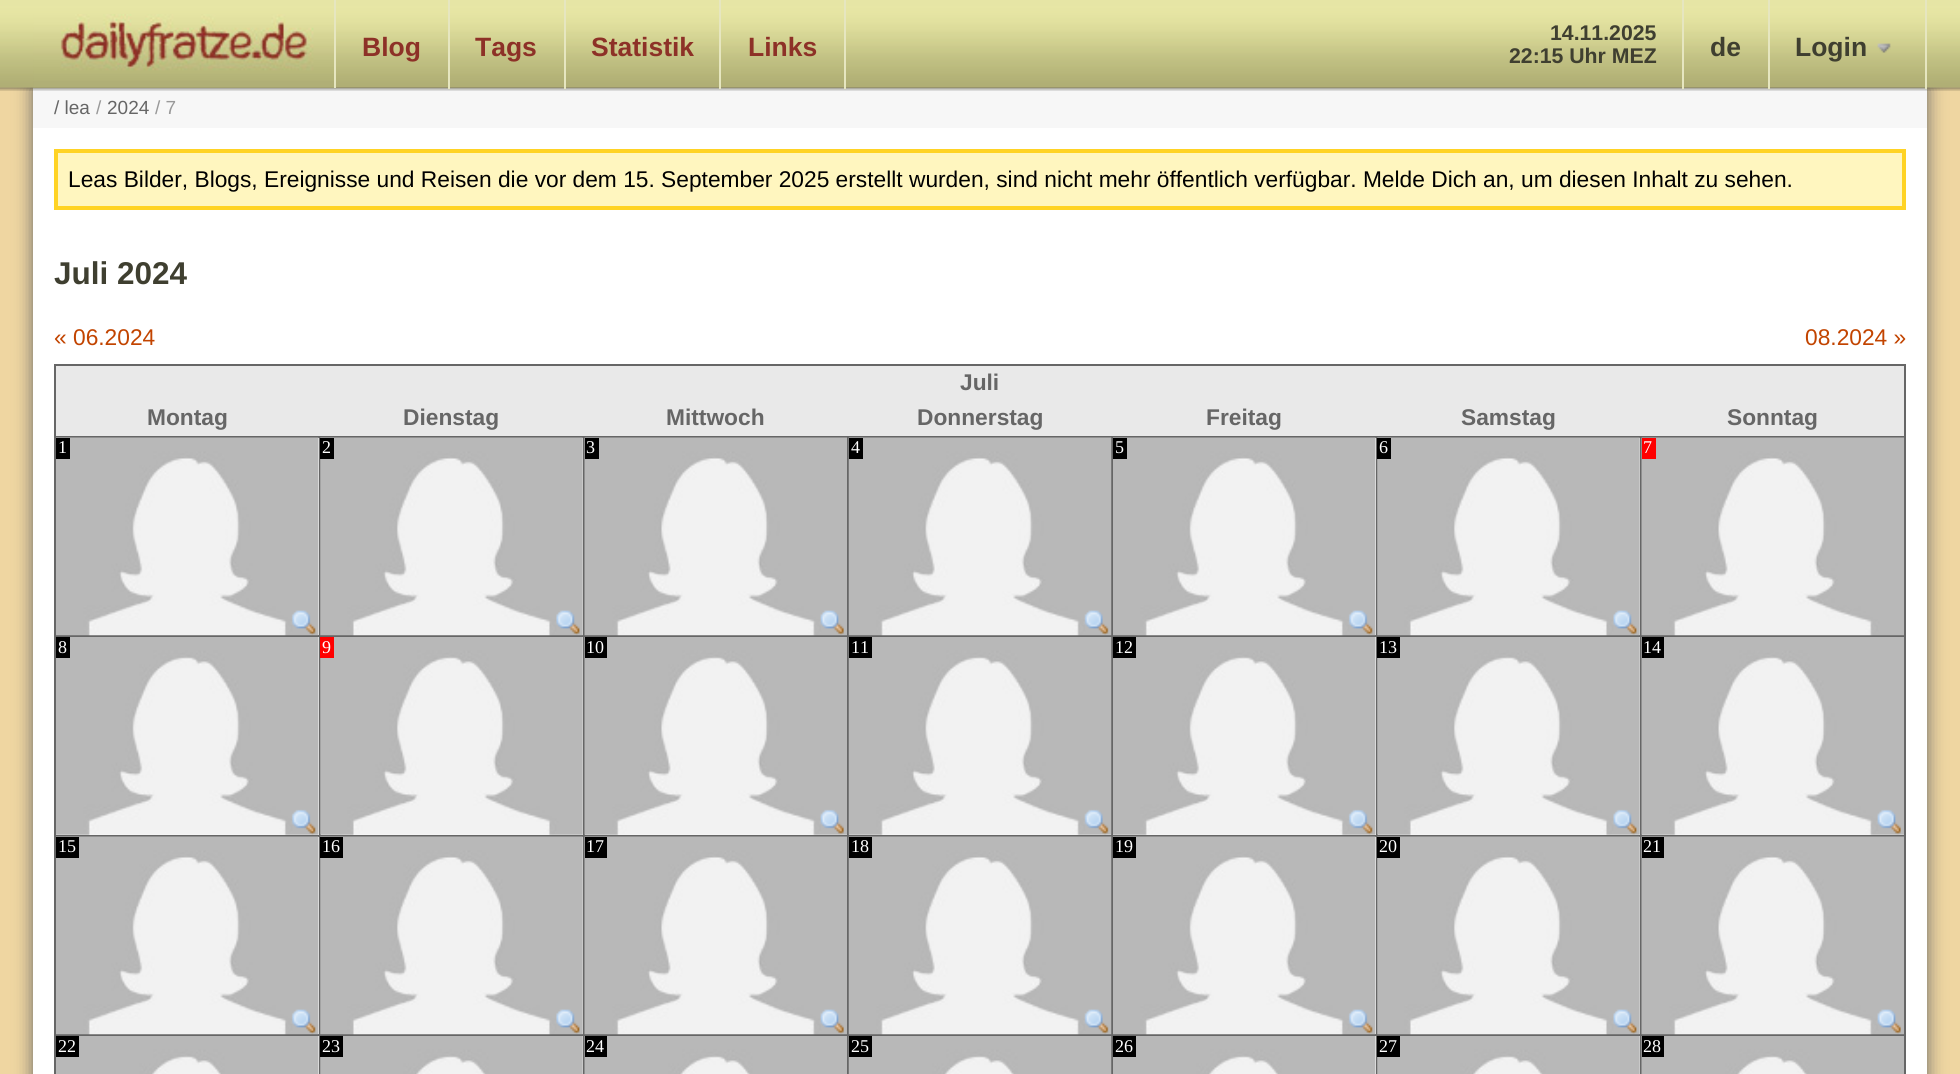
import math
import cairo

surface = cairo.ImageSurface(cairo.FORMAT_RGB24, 1960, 1074)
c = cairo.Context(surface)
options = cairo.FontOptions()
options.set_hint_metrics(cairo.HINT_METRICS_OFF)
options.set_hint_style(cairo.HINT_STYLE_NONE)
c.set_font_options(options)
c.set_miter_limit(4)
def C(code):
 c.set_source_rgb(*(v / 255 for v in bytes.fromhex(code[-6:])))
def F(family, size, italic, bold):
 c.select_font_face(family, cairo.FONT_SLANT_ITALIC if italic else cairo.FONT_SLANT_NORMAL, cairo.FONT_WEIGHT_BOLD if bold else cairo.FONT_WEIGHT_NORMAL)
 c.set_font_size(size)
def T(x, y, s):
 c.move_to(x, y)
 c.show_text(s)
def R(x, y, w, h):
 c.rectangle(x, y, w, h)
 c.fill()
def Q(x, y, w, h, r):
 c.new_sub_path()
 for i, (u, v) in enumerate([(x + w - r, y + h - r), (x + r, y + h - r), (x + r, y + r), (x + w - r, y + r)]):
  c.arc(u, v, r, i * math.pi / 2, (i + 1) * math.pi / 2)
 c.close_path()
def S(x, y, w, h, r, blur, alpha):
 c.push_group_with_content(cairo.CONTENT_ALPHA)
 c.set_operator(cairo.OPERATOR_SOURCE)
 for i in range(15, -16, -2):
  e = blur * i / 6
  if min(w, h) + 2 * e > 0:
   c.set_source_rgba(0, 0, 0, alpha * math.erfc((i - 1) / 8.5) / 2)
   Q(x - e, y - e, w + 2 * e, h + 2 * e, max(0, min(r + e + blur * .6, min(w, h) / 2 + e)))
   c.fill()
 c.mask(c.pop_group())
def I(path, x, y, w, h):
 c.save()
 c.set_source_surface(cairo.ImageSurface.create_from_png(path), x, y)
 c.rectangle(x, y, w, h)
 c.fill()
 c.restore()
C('efd6a1')
c.paint()
C('666666')
S(33,88,1894,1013,0,9,1)
C('f7f7f7')
R(33,88,1894,40)
I('1.png',0,0,1960,91)
I('2.png',33,14,301,74)
C('e6e6c0')
R(334,0,2,88)
R(448,0,2,89)
F('Liberation Sans',26.5,0,1)
C('8d3127')
T(362,56,'Blog')
C('e6e6c0')
R(564,0,2,89)
C('8d3127')
T(475,56,'Tags')
C('e6e6c0')
R(719,0,2,89)
C('8d3127')
T(591,56,'Statistik')
C('e6e6c0')
R(844,0,2,89)
C('8d3127')
T(748,56,'Links')
C('e6e6c0')
R(1682,0,2,89)
F('Liberation Sans',21.25,0,1)
C('3f3f30')
T(1550,40,'14.11.2025')
T(1509,63,'22:15 Uhr MEZ')
C('e6e6c0')
R(1768,0,2,89)
F('Liberation Sans',26.5,0,1)
C('3f3f30')
T(1710,56,'de')
C('e6e6c0')
R(1925,0,2,89)
C('3f3f30')
T(1795,56,'Login')
I('3.png',1877,43,14,10)
C('ffffff')
R(33,128,1894,946)
F('Liberation Sans',19,0,0)
C('666666')
T(54,114,'/ lea')
C('999999')
T(96,114,'/')
C('666666')
T(107,114,'2024')
C('999999')
T(155,114,'/ 7')
C('fff6bf')
c.rectangle(56,151,1848,57)
c.fill_preserve()
C('ffd324')
c.set_line_width(4)
c.stroke()
F('Liberation Sans',22.75,0,0)
C('000000')
T(68,187,'Leas Bilder, Blogs, Ereignisse und Reisen die vor dem 15. September 2025 erstellt wurden, sind nicht mehr öffentlich verfügbar. Melde Dich an, um diesen Inhalt zu sehen.')
F('Liberation Sans',31.5,0,1)
C('3f3f30')
T(54,284,'Juli 2024')
F('Liberation Sans',22.75,0,0)
C('c24400')
T(54,345,'« 06.2024')
T(1805,345,'08.2024 »')
C('666666')
R(54,364,1852,2)
R(1904,364,2,710)
R(54,364,2,710)
R(54,436,1852,2)
C('e9e9e9')
R(56,366,1848,35)
F('Liberation Sans',22.75,0,1)
C('666666')
T(960,390,'Juli')
C('e9e9e9')
R(56,401,1848,35)
C('666666')
T(147,425,'Montag')
T(403,425,'Dienstag')
T(666,425,'Mittwoch')
T(917,425,'Donnerstag')
T(1206,425,'Freitag')
T(1461,425,'Samstag')
T(1727,425,'Sonntag')
R(1640,635,266,2)
R(1640,835,266,2)
R(1640,1034,266,2)
R(1640,1034,2,40)
R(1376,1034,266,2)
R(1640,835,2,201)
R(1376,835,266,2)
R(1640,635,2,202)
R(1376,635,266,2)
R(1376,1034,2,40)
R(1111,1034,266,2)
R(1376,835,2,201)
R(1111,835,266,2)
R(1376,635,2,202)
R(1111,635,266,2)
R(1111,1034,2,40)
R(847,1034,266,2)
R(1111,835,2,201)
R(847,835,266,2)
R(1111,635,2,202)
R(847,635,266,2)
R(847,1034,2,40)
R(583,1034,266,2)
R(847,835,2,201)
R(583,835,266,2)
R(847,635,2,202)
R(583,635,266,2)
R(583,1034,2,40)
R(319,1034,266,2)
R(583,835,2,201)
R(319,835,266,2)
R(583,635,2,202)
R(319,635,266,2)
R(319,1034,2,40)
R(54,1034,266,2)
R(319,835,2,201)
R(54,835,266,2)
R(319,635,2,202)
R(54,635,266,2)
I('4.png',56,437,263,199)
C('000000')
R(56,438,14,21)
F('Liberation Serif',18,0,0)
C('ffffff')
T(58,453,'1')
I('5.png',291,610,25,26)
C('666666')
R(319,436,2,201)
I('6.png',320,437,263,199)
C('000000')
R(320,438,14,21)
C('ffffff')
T(322,453,'2')
I('7.png',556,610,24,25)
C('666666')
R(583,436,2,201)
I('8.png',584,437,263,199)
C('000000')
R(585,438,14,21)
C('ffffff')
T(586,453,'3')
I('9.png',820,610,24,25)
C('666666')
R(847,436,2,201)
R(1111,436,2,201)
I('10.png',848,437,264,199)
C('000000')
R(849,438,14,21)
C('ffffff')
T(851,453,'4')
I('11.png',1084,610,25,25)
I('12.png',1113,437,263,199)
C('000000')
R(1113,438,14,21)
C('ffffff')
T(1115,453,'5')
I('13.png',1348,610,25,26)
C('666666')
R(1376,436,2,201)
I('6.png',1377,437,263,199)
C('000000')
R(1377,438,14,21)
C('ffffff')
T(1379,453,'6')
I('14.png',1613,610,24,25)
C('666666')
R(1640,436,2,201)
I('15.png',1641,437,263,199)
C('ff0000')
R(1642,438,14,21)
C('ffffff')
T(1643,453,'7')
I('16.png',56,637,263,198)
C('000000')
R(56,637,14,21)
C('ffffff')
T(58,653,'8')
I('17.png',291,809,25,26)
I('18.png',320,637,263,198)
C('ff0000')
R(320,637,14,21)
C('ffffff')
T(322,653,'9')
I('19.png',584,637,263,198)
C('000000')
R(585,637,22,21)
C('ffffff')
T(586,653,'10')
I('20.png',820,809,24,26)
I('21.png',848,637,264,198)
C('000000')
R(849,637,23,21)
C('ffffff')
T(851,653,'11')
I('22.png',1084,809,25,26)
I('23.png',1113,637,263,198)
C('000000')
R(1113,637,23,21)
C('ffffff')
T(1115,653,'12')
I('24.png',1348,809,25,26)
I('18.png',1377,637,263,198)
C('000000')
R(1377,637,23,21)
C('ffffff')
T(1379,653,'13')
I('25.png',1613,809,24,26)
I('26.png',1641,637,263,198)
C('000000')
R(1642,637,22,21)
C('ffffff')
T(1643,653,'14')
I('20.png',1877,809,24,26)
I('4.png',56,836,263,199)
C('000000')
R(56,837,23,21)
C('ffffff')
T(58,852,'15')
I('5.png',291,1009,25,26)
I('6.png',320,836,263,199)
C('000000')
R(320,837,23,21)
C('ffffff')
T(322,852,'16')
I('7.png',556,1009,24,25)
I('8.png',584,836,263,199)
C('000000')
R(585,837,22,21)
C('ffffff')
T(586,852,'17')
I('9.png',820,1009,24,25)
I('10.png',848,836,264,199)
C('000000')
R(849,837,23,21)
C('ffffff')
T(851,852,'18')
I('11.png',1084,1009,25,25)
I('12.png',1113,836,263,199)
C('000000')
R(1113,837,23,21)
C('ffffff')
T(1115,852,'19')
I('13.png',1348,1009,25,26)
I('6.png',1377,836,263,199)
C('000000')
R(1377,837,23,21)
C('ffffff')
T(1379,852,'20')
I('14.png',1613,1009,24,25)
I('15.png',1641,836,263,199)
C('000000')
R(1642,837,22,21)
C('ffffff')
T(1643,852,'21')
I('9.png',1877,1009,24,25)
I('27.png',56,1036,263,38)
C('000000')
R(56,1036,23,21)
C('ffffff')
T(58,1052,'22')
I('28.png',320,1036,263,38)
C('000000')
R(320,1036,23,21)
C('ffffff')
T(322,1052,'23')
I('29.png',584,1036,263,38)
C('000000')
R(585,1036,22,21)
C('ffffff')
T(586,1052,'24')
I('30.png',848,1036,264,38)
C('000000')
R(849,1036,23,21)
C('ffffff')
T(851,1052,'25')
I('27.png',1113,1036,263,38)
C('000000')
R(1113,1036,23,21)
C('ffffff')
T(1115,1052,'26')
I('28.png',1377,1036,263,38)
C('000000')
R(1377,1036,23,21)
C('ffffff')
T(1379,1052,'27')
I('31.png',1641,1036,263,38)
C('000000')
R(1642,1036,22,21)
C('ffffff')
T(1643,1052,'28')
surface.write_to_png('o.png')
